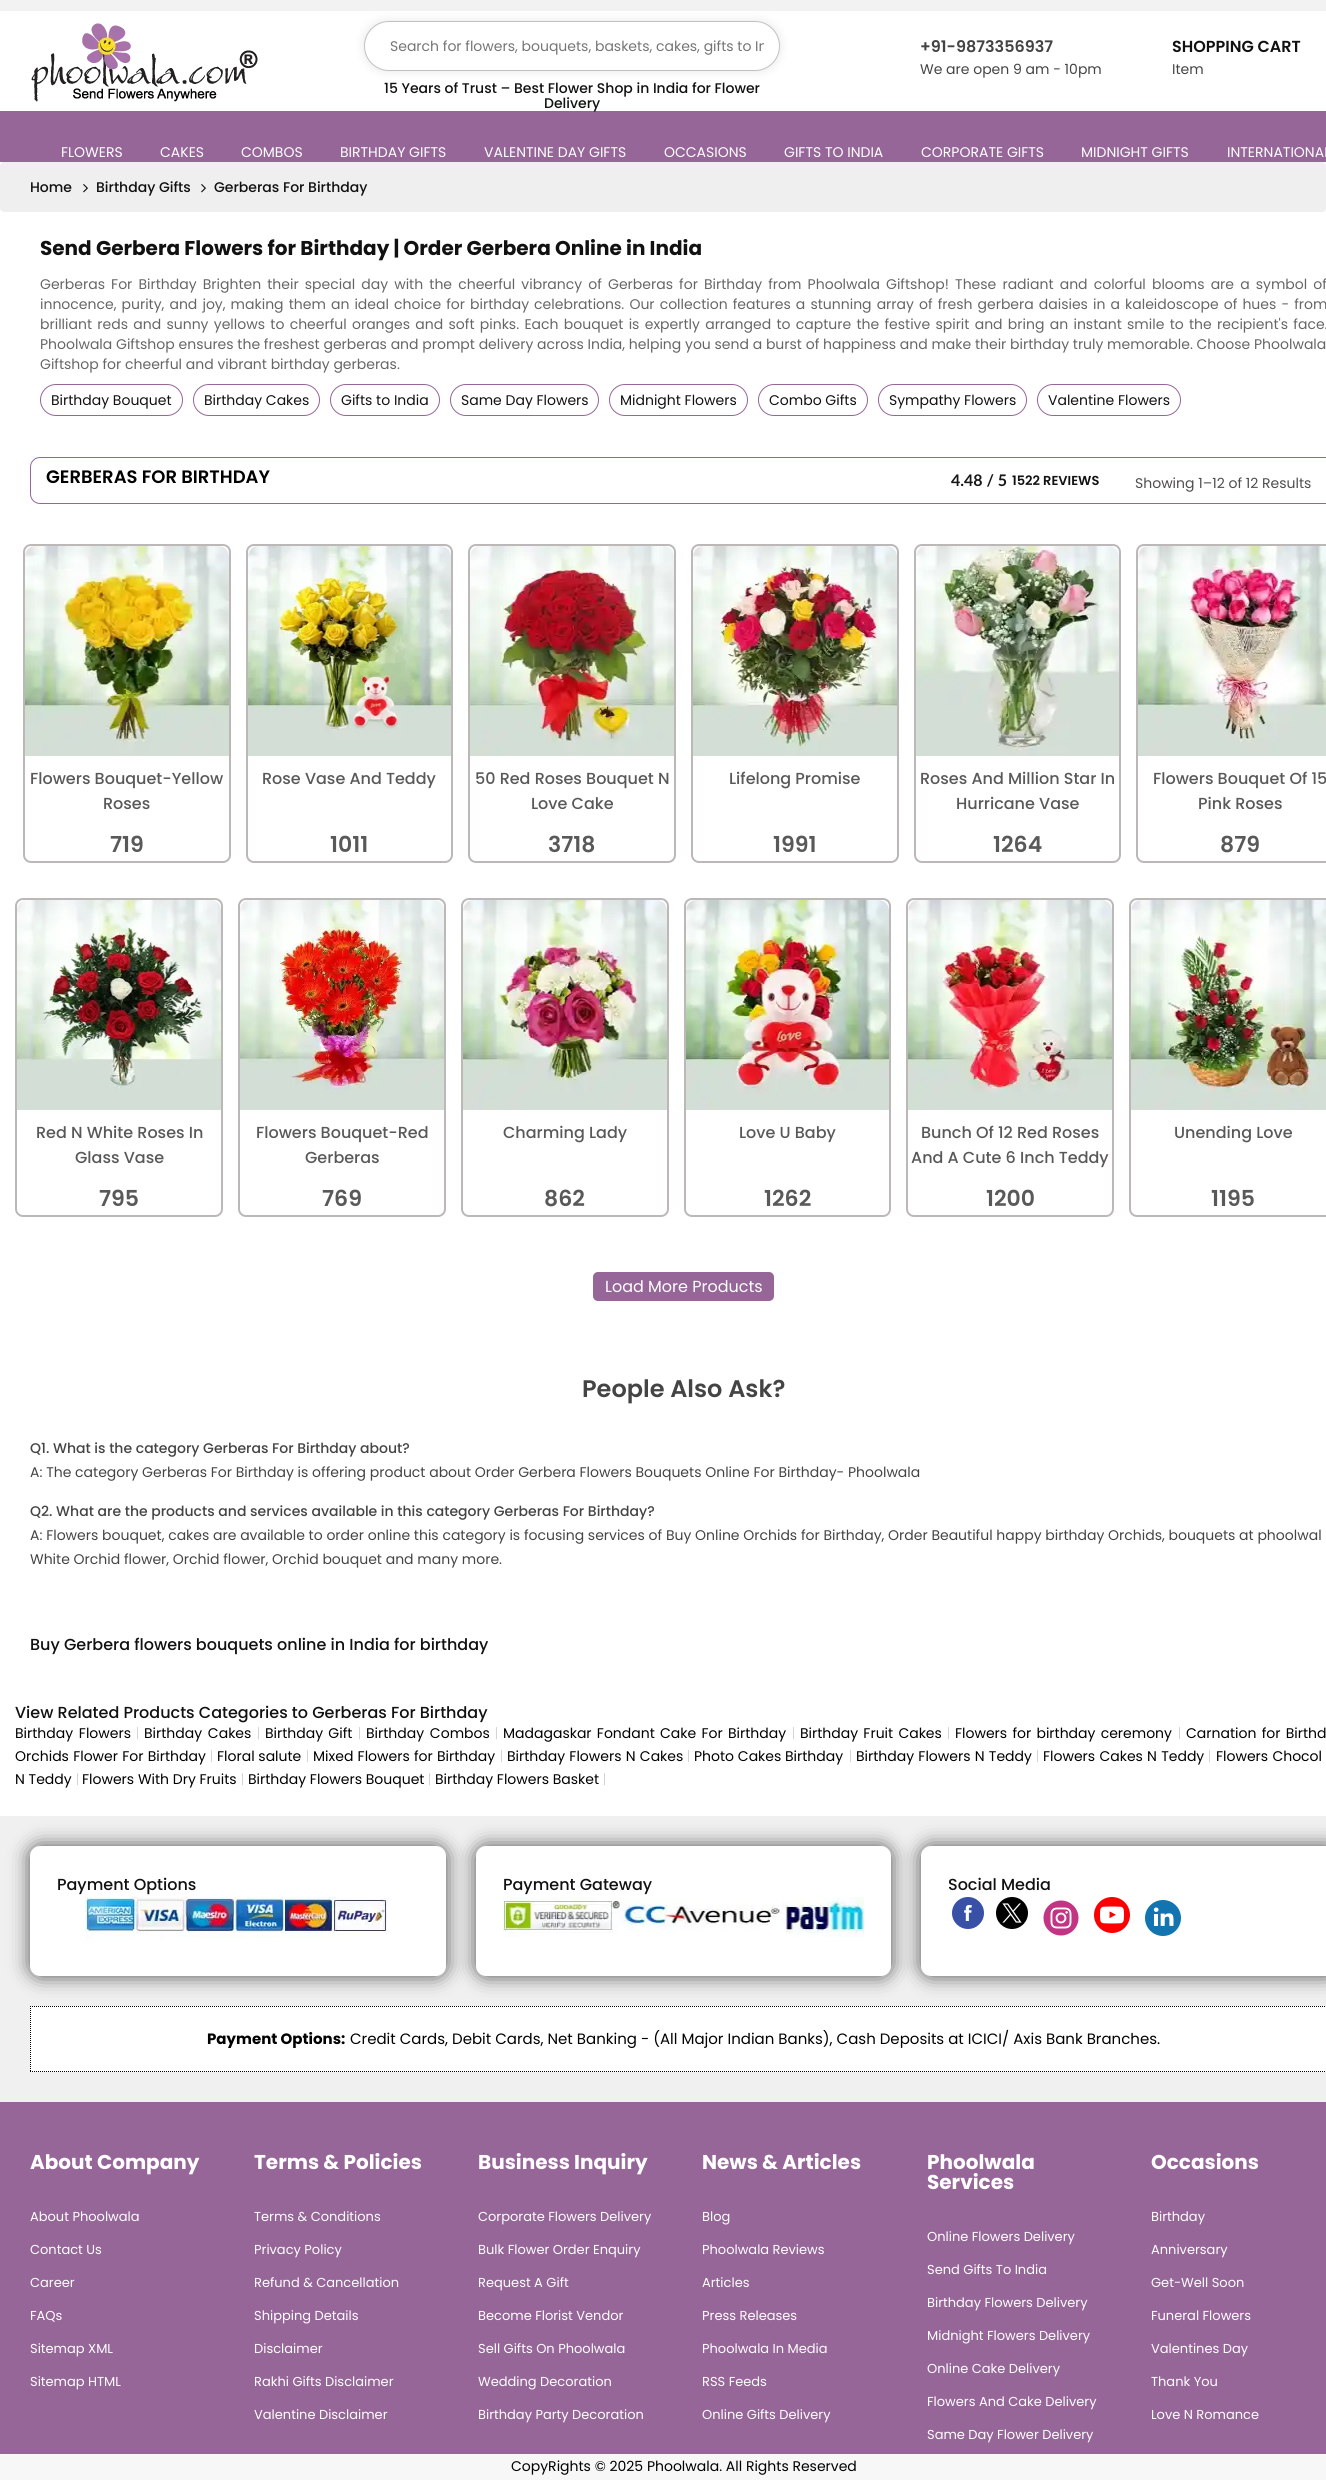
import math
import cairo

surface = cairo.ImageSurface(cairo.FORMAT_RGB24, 1326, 2480)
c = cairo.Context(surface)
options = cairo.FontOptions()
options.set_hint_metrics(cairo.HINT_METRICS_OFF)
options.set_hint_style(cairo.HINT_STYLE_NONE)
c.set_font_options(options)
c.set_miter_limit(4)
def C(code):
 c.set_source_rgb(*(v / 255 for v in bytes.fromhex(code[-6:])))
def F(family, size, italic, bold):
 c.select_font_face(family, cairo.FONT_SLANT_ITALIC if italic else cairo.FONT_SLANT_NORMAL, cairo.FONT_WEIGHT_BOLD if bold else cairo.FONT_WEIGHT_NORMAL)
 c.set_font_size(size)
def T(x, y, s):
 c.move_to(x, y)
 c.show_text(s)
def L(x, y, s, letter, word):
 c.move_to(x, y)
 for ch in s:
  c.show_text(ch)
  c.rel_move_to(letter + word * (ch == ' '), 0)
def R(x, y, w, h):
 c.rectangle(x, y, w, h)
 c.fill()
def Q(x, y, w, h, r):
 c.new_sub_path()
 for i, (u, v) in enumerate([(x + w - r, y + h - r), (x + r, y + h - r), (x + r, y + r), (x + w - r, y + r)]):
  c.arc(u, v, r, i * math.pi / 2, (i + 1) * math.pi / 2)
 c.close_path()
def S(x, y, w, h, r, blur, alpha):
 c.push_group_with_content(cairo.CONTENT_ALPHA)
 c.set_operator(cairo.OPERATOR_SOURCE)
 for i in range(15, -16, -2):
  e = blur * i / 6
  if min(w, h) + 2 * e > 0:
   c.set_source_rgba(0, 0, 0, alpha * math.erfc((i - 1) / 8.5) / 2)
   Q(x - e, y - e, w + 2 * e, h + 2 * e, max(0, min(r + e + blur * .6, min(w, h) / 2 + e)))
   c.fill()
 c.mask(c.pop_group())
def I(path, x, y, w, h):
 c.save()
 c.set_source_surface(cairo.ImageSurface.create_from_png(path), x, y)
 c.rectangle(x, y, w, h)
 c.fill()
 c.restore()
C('ffffff')
c.paint()
C('f2f2f2')
R(0,0,1326,11)
I('1.png',31,23,227,79)
C('000000')
S(364,21,416,50,25,5,.1)
C('ffffff')
Q(364.5,21.5,415,49,24.5)
c.fill_preserve()
C('c1c1c1')
c.set_line_width(1)
c.stroke()
c.save()
c.rectangle(390,36,374,21)
c.clip()
F('Poppins',14,0,0)
C('757575')
T(390,51,'Search for flowers, bouquets, baskets, cakes, gifts to In')
c.restore()
F('Poppins Medium',14,0,0)
C('111111')
T(384,93,'15 Years of Trust – Best Flower Shop in India for Flower')
C('966699')
R(0,111,1326,51)
C('111111')
T(544,108,'Delivery')
F('Poppins SemiBold',16,0,0)
C('444444')
T(920,52,'+91-9873356937')
F('Poppins',14,0,0)
T(920,74,'We are open 9 am - 10pm')
F('Poppins SemiBold',16,0,0)
C('111111')
T(1172,52,'SHOPPING CART')
F('Poppins',14,0,0)
C('444444')
T(1172,74,'Item')
C('ffffff')
T(61,157,'FLOWERS')
T(160,157,'CAKES')
T(241,157,'COMBOS')
T(340,157,'BIRTHDAY GIFTS')
T(484,157,'VALENTINE DAY GIFTS')
T(664,157,'OCCASIONS')
T(784,157,'GIFTS TO INDIA')
T(921,157,'CORPORATE GIFTS')
T(1081,157,'MIDNIGHT GIFTS')
T(1227,157,'INTERNATIONAL')
C('efefef')
Q(0,162,1326,50,4)
c.fill()
F('Poppins Medium',14,0,0)
C('111111')
T(30,192,'Home')
I('2.png',83,184,5,9)
T(96,192,'Birthday Gifts')
I('2.png',201,184,5,9)
T(214,192,'Gerberas For Birthday')
F('Poppins',20,0,1)
T(40,255,'Send Gerbera Flowers for Birthday | Order Gerbera Online in India')
F('Poppins',14,0,0)
C('666666')
L(40,289,'Gerberas For Birthday Brighten their special day with the cheerful vibrancy of Gerberas for Birthday from Phoolwala Giftshop! These radiant and colorful blooms are a symbol of',0,2.4)
L(40,309,'innocence, purity, and joy, making them an ideal choice for birthday celebrations. Our collection features a stunning array of fresh gerbera daisies in a kaleidoscope of hues - from',0,1.35)
L(40,329,'brilliant reds and sunny yellows to cheerful oranges and soft pinks. Each bouquet is expertly arranged to capture the festive spirit and bring an instant smile to the recipient\'s face.',0,1.55)
T(40,349,'Phoolwala Giftshop ensures the freshest gerberas and prompt delivery across India, helping you send a burst of happiness and make their birthday truly memorable. Choose Phoolwala')
T(40,369,'Giftshop for cheerful and vibrant birthday gerberas.')
Q(40.5,384.5,142,31,15.5)
C('966699')
c.stroke()
C('111111')
T(51,405,'Birthday Bouquet')
Q(193.5,384.5,126,31,15.5)
C('966699')
c.stroke()
C('111111')
T(204,405,'Birthday Cakes')
Q(330.5,384.5,109,31,15.5)
C('966699')
c.stroke()
C('111111')
T(341,405,'Gifts to India')
Q(450.5,384.5,148,31,15.5)
C('966699')
c.stroke()
C('111111')
T(461,405,'Same Day Flowers')
Q(609.5,384.5,138,31,15.5)
C('966699')
c.stroke()
C('111111')
T(620,405,'Midnight Flowers')
Q(758.5,384.5,109,31,15.5)
C('966699')
c.stroke()
C('111111')
T(769,405,'Combo Gifts')
Q(878.5,384.5,148,31,15.5)
C('966699')
c.stroke()
C('111111')
T(889,405,'Sympathy Flowers')
Q(1037.5,384.5,143,31,15.5)
C('966699')
c.stroke()
C('111111')
T(1048,405,'Valentine Flowers')
Q(30.5,457.5,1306,46,9.5)
C('966699')
c.stroke()
F('Poppins SemiBold',18,0,0)
C('000000')
T(46,483,'GERBERAS FOR BIRTHDAY')
F('Lato',16,0,1)
C('181818')
T(951,486,'4.48 / 5')
F('Poppins SemiBold',13,0,0)
C('111111')
T(1012,485,'1522 REVIEWS')
F('Poppins',14,0,0)
C('4f4d4d')
T(1135,488,'Showing 1–12 of 12 Results')
Q(24,545,206,317,7)
C('bcb8b8')
c.set_line_width(2)
c.stroke()
I('3.png',25,546,204,210)
F('Poppins Medium',16,0,0)
C('5a5959')
T(30,784,'Flowers Bouquet-Yellow')
T(103,809,'Roses')
F('Poppins SemiBold',22,0,0)
T(110,852,'719')
Q(247,545,205,317,7)
C('bcb8b8')
c.stroke()
I('4.png',248,546,203,210)
F('Poppins Medium',16,0,0)
C('5a5959')
T(262,784,'Rose Vase And Teddy')
F('Poppins SemiBold',22,0,0)
T(330,852,'1011')
Q(469,545,206,317,7)
C('bcb8b8')
c.stroke()
I('5.png',470,546,204,210)
F('Poppins Medium',16,0,0)
C('5a5959')
T(475,784,'50 Red Roses Bouquet N')
T(531,809,'Love Cake')
F('Poppins SemiBold',22,0,0)
T(548,852,'3718')
Q(692,545,206,317,7)
C('bcb8b8')
c.stroke()
I('6.png',693,546,204,210)
F('Poppins Medium',16,0,0)
C('5a5959')
T(729,784,'Lifelong Promise')
F('Poppins SemiBold',22,0,0)
T(773,852,'1991')
Q(915,545,205,317,7)
C('bcb8b8')
c.stroke()
I('7.png',916,546,203,210)
F('Poppins Medium',16,0,0)
C('5a5959')
T(920,784,'Roses And Million Star In')
T(956,809,'Hurricane Vase')
F('Poppins SemiBold',22,0,0)
T(993,852,'1264')
Q(1137,545,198,317,7)
C('bcb8b8')
c.stroke()
I('8.png',1138,546,188,210)
F('Poppins Medium',16,0,0)
C('5a5959')
T(1153,784,'Flowers Bouquet Of 15')
T(1198,809,'Pink Roses')
F('Poppins SemiBold',22,0,0)
T(1220,852,'879')
Q(16,899,206,317,7)
C('bcb8b8')
c.stroke()
I('9.png',17,900,204,210)
F('Poppins Medium',16,0,0)
C('5a5959')
T(36,1138,'Red N White Roses In')
T(75,1163,'Glass Vase')
F('Poppins SemiBold',22,0,0)
T(99,1206,'795')
Q(239,899,206,317,7)
C('bcb8b8')
c.stroke()
I('10.png',240,900,204,210)
F('Poppins Medium',16,0,0)
C('5a5959')
T(256,1138,'Flowers Bouquet-Red')
T(305,1163,'Gerberas')
F('Poppins SemiBold',22,0,0)
T(322,1206,'769')
Q(462,899,206,317,7)
C('bcb8b8')
c.stroke()
I('11.png',463,900,204,210)
F('Poppins Medium',16,0,0)
C('5a5959')
T(503,1138,'Charming Lady')
F('Poppins SemiBold',22,0,0)
T(544,1206,'862')
Q(685,899,205,317,7)
C('bcb8b8')
c.stroke()
I('12.png',686,900,203,210)
F('Poppins Medium',16,0,0)
C('5a5959')
T(739,1138,'Love U Baby')
F('Poppins SemiBold',22,0,0)
T(764,1206,'1262')
Q(907,899,206,317,7)
C('bcb8b8')
c.stroke()
I('13.png',908,900,204,210)
F('Poppins Medium',16,0,0)
C('5a5959')
T(921,1138,'Bunch Of 12 Red Roses')
T(911,1163,'And A Cute 6 Inch Teddy')
F('Poppins SemiBold',22,0,0)
T(986,1206,'1200')
Q(1130,899,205,317,7)
C('bcb8b8')
c.stroke()
I('14.png',1131,900,195,210)
F('Poppins Medium',16,0,0)
C('5a5959')
T(1174,1138,'Unending Love')
F('Poppins SemiBold',22,0,0)
T(1211,1206,'1195')
C('966699')
Q(593,1272,181,29,5)
c.fill()
F('Poppins',16,0,0)
C('ffffff')
T(605,1292,'Load More Products')
F('Poppins SemiBold',24,0,0)
C('444444')
T(582,1397,'People Also Ask?')
F('Poppins Medium',14,0,0)
T(30,1453,'Q1. What is the category Gerberas For Birthday about?')
F('Poppins',14,0,0)
T(30,1477,'A: The category Gerberas For Birthday is offering product about Order Gerbera Flowers Bouquets Online For Birthday- Phoolwala')
F('Poppins Medium',14,0,0)
T(30,1516,'Q2. What are the products and services available in this category Gerberas For Birthday?')
F('Poppins',14,0,0)
T(30,1540,'A: Flowers bouquet, cakes are available to order online this category is focusing services of Buy Online Orchids for Birthday, Order Beautiful happy birthday Orchids, bouquets at phoolwal')
T(30,1564,'White Orchid flower, Orchid flower, Orchid bouquet and many more.')
F('Poppins Medium',16,0,0)
C('111111')
T(30,1650,'Buy Gerbera flowers bouquets online in India for birthday')
T(15,1718,'View Related Products Categories to Gerberas For Birthday')
F('Poppins',14,0,0)
C('000000')
L(15,1738,'Birthday Flowers',0,2)
F('Poppins ExtraLight',14,0,0)
C('666666')
T(136,1738,'|')
F('Poppins',14,0,0)
C('000000')
L(144,1738,'Birthday Cakes',0,2)
F('Poppins ExtraLight',14,0,0)
C('666666')
T(257,1738,'|')
F('Poppins',14,0,0)
C('000000')
L(265,1738,'Birthday Gift',0,1.5)
F('Poppins ExtraLight',14,0,0)
C('666666')
T(358,1738,'|')
F('Poppins',14,0,0)
C('000000')
L(366,1738,'Birthday Combos',0,2)
F('Poppins ExtraLight',14,0,0)
C('666666')
T(495,1738,'|')
F('Poppins',14,0,0)
C('000000')
L(503,1738,'Madagaskar Fondant Cake For Birthday',0,1.5)
F('Poppins ExtraLight',14,0,0)
C('666666')
T(792,1738,'|')
F('Poppins',14,0,0)
C('000000')
L(800,1738,'Birthday Fruit Cakes',0,1.5)
F('Poppins ExtraLight',14,0,0)
C('666666')
T(947,1738,'|')
F('Poppins',14,0,0)
C('000000')
L(955,1738,'Flowers for birthday ceremony',0,1.5)
F('Poppins ExtraLight',14,0,0)
C('666666')
T(1178,1738,'|')
F('Poppins',14,0,0)
C('000000')
L(1186,1738,'Carnation for Birthd',0,1.5)
L(15,1761,'Orchids Flower For Birthday',0,.5)
F('Poppins ExtraLight',14,0,0)
C('666666')
T(210,1761,'|')
F('Poppins',14,0,0)
C('000000')
T(217,1761,'Floral salute')
F('Poppins ExtraLight',14,0,0)
C('666666')
T(306,1761,'|')
F('Poppins',14,0,0)
C('000000')
L(313,1761,'Mixed Flowers for Birthday',0,.5)
F('Poppins ExtraLight',14,0,0)
C('666666')
T(500,1761,'|')
F('Poppins',14,0,0)
C('000000')
L(507,1761,'Birthday Flowers N Cakes',0,.5)
F('Poppins ExtraLight',14,0,0)
C('666666')
T(687,1761,'|')
F('Poppins',14,0,0)
C('000000')
T(694,1761,'Photo Cakes Birthday')
F('Poppins ExtraLight',14,0,0)
C('666666')
T(849,1761,'|')
F('Poppins',14,0,0)
C('000000')
L(856,1761,'Birthday Flowers N Teddy',0,.5)
F('Poppins ExtraLight',14,0,0)
C('666666')
T(1036,1761,'|')
F('Poppins',14,0,0)
C('000000')
L(1043,1761,'Flowers Cakes N Teddy',0,.5)
F('Poppins ExtraLight',14,0,0)
C('666666')
T(1208,1761,'|')
F('Poppins',14,0,0)
C('000000')
L(1216,1761,'Flowers Chocol',0,.5)
T(15,1784,'N Teddy')
F('Poppins ExtraLight',14,0,0)
C('666666')
T(76,1784,'|')
F('Poppins',14,0,0)
C('000000')
T(82,1784,'Flowers With Dry Fruits')
F('Poppins ExtraLight',14,0,0)
C('666666')
T(241,1784,'|')
F('Poppins',14,0,0)
C('000000')
T(248,1784,'Birthday Flowers Bouquet')
F('Poppins ExtraLight',14,0,0)
C('666666')
T(428,1784,'|')
F('Poppins',14,0,0)
C('000000')
T(435,1784,'Birthday Flowers Basket')
F('Poppins ExtraLight',14,0,0)
C('666666')
T(603,1784,'|')
C('f0f0f0')
R(0,1816,1326,286)
C('000000')
S(30,1846,416,130,10,10,.67)
C('ffffff')
Q(31,1847,414,128,9)
c.fill_preserve()
c.stroke()
F('Poppins Medium',16,0,0)
C('111111')
T(57,1890,'Payment Options')
I('15.png',85,1897,304,43)
C('000000')
S(476,1846,415,130,10,10,.67)
C('ffffff')
Q(477,1847,413,128,9)
c.fill_preserve()
c.stroke()
C('111111')
T(503,1890,'Payment Gateway')
I('16.png',503,1897,361,40)
C('000000')
S(921,1846,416,130,10,10,.67)
C('ffffff')
Q(922,1847,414,128,9)
c.fill_preserve()
c.stroke()
C('111111')
T(948,1890,'Social Media')
I('17.png',952,1897,32,32)
I('18.png',996,1897,32,32)
I('19.png',1043,1900,36,36)
I('20.png',1094,1897,36,36)
I('21.png',1145,1900,36,36)
C('ffffff')
R(30,2006,1296,66)
c.new_path()
c.move_to(30,2006.5)
c.line_to(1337,2006.5)
C('000000')
c.set_line_width(1)
c.set_dash([1,1])
c.stroke()
c.new_path()
c.move_to(30,2071.5)
c.line_to(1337,2071.5)
c.stroke()
c.new_path()
c.move_to(30.5,2006)
c.line_to(30.5,2072)
c.stroke()
F('Poppins',15,0,1)
T(207,2044,'Payment Options:')
F('Poppins',15,0,0)
T(350,2044,'Credit Cards, Debit Cards, Net Banking - (All Major Indian Banks), Cash Deposits at ICICI/ Axis Bank Branches.')
C('966699')
R(0,2102,1326,352)
F('Poppins',20,0,1)
C('ffffff')
T(30,2169,'About Company')
F('Poppins',13,0,0)
T(30,2221,'About Phoolwala')
T(30,2254,'Contact Us')
T(30,2287,'Career')
T(30,2320,'FAQs')
T(30,2353,'Sitemap XML')
T(30,2386,'Sitemap HTML')
F('Poppins',20,0,1)
T(254,2169,'Terms & Policies')
F('Poppins',13,0,0)
T(254,2221,'Terms & Conditions')
T(254,2254,'Privacy Policy')
T(254,2287,'Refund & Cancellation')
T(254,2320,'Shipping Details')
T(254,2353,'Disclaimer')
T(254,2386,'Rakhi Gifts Disclaimer')
T(254,2419,'Valentine Disclaimer')
F('Poppins',20,0,1)
T(478,2169,'Business Inquiry')
F('Poppins',13,0,0)
T(478,2221,'Corporate Flowers Delivery')
T(478,2254,'Bulk Flower Order Enquiry')
T(478,2287,'Request A Gift')
T(478,2320,'Become Florist Vendor')
T(478,2353,'Sell Gifts On Phoolwala')
T(478,2386,'Wedding Decoration')
T(478,2419,'Birthday Party Decoration')
F('Poppins',20,0,1)
T(702,2169,'News & Articles')
F('Poppins',13,0,0)
T(702,2221,'Blog')
T(702,2254,'Phoolwala Reviews')
T(702,2287,'Articles')
T(702,2320,'Press Releases')
T(702,2353,'Phoolwala In Media')
T(702,2386,'RSS Feeds')
T(702,2419,'Online Gifts Delivery')
F('Poppins',20,0,1)
T(927,2169,'Phoolwala')
T(927,2189,'Services')
F('Poppins',13,0,0)
T(927,2241,'Online Flowers Delivery')
T(927,2274,'Send Gifts To India')
T(927,2307,'Birthday Flowers Delivery')
T(927,2340,'Midnight Flowers Delivery')
T(927,2373,'Online Cake Delivery')
T(927,2406,'Flowers And Cake Delivery')
T(927,2439,'Same Day Flower Delivery')
F('Poppins',20,0,1)
T(1151,2169,'Occasions')
F('Poppins',13,0,0)
T(1151,2221,'Birthday')
T(1151,2254,'Anniversary')
T(1151,2287,'Get-Well Soon')
T(1151,2320,'Funeral Flowers')
T(1151,2353,'Valentines Day')
T(1151,2386,'Thank You')
T(1151,2419,'Love N Romance')
C('f7f7f7')
R(0,2454,1326,26)
F('Poppins',14,0,0)
C('000000')
T(511,2471,'CopyRights © 2025 Phoolwala. All Rights Reserved')
surface.write_to_png('o.png')
